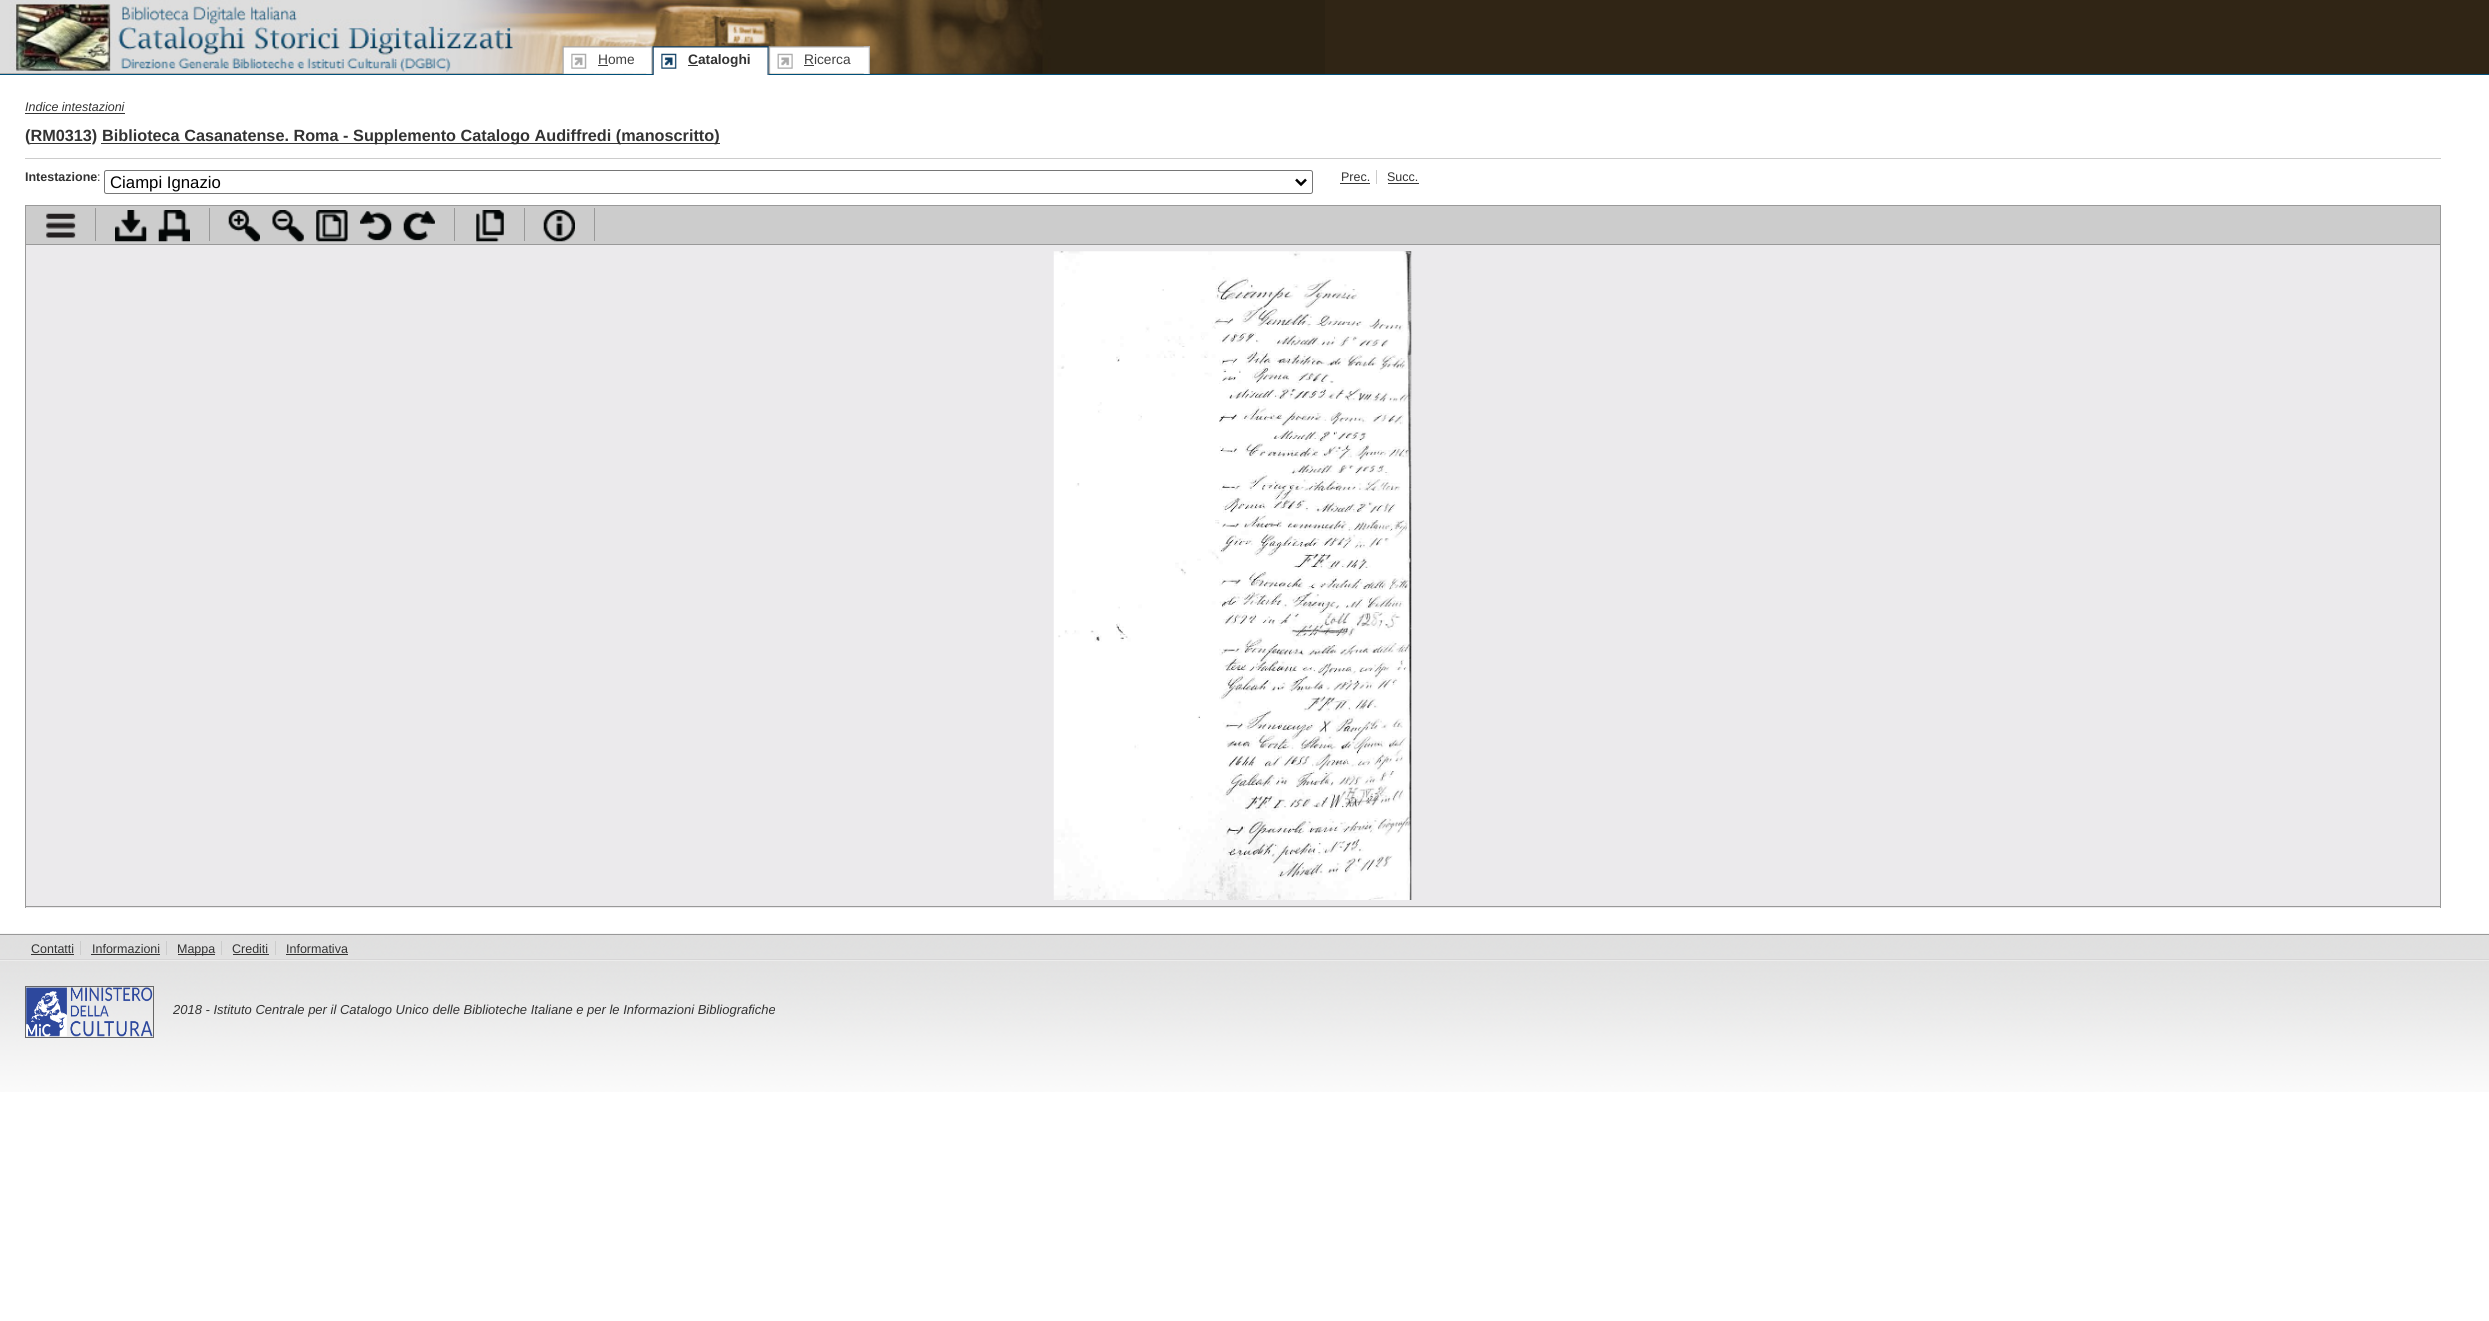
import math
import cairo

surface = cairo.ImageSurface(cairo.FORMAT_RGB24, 2489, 1321)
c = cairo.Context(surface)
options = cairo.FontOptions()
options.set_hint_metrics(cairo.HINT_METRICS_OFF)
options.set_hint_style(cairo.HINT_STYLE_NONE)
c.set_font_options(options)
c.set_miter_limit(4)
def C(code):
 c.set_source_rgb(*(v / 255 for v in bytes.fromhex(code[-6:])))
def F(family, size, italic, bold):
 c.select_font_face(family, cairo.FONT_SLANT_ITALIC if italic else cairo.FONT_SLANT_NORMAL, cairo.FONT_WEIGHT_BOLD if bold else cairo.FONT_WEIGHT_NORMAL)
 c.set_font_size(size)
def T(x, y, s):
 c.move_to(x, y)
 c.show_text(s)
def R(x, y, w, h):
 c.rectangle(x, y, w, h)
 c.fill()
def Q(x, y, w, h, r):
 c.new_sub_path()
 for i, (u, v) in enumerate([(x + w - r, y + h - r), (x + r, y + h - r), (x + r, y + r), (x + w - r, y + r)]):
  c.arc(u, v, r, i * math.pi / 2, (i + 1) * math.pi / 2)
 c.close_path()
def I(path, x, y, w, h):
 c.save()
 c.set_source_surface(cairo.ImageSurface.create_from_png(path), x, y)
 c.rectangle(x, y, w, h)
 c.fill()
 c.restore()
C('ffffff')
c.paint()
I('1.png',0,74,2489,1)
C('302515')
R(0,0,2489,74)
I('2.png',0,0,1325,74)
I('3.png',562,46,91,28)
I('4.png',646,46,7,28)
F('Liberation Sans',13.75,0,0)
C('3f3f3f')
T(598,64,'Home')
R(598,65,10,1)
I('5.png',652,46,117,29)
I('6.png',761,46,8,29)
C('333333')
R(688,65,10,1)
F('Liberation Sans',13.75,0,1)
T(688,64,'Cataloghi')
I('7.png',768,46,102,28)
I('8.png',863,46,7,28)
F('Liberation Sans',13.75,0,0)
C('3f3f3f')
T(804,64,'Ricerca')
R(804,65,10,1)
F('Liberation Sans',12.5,1,0)
C('333333')
T(25,111,'Indice intestazioni')
R(25,113,100,1)
F('Liberation Sans',16.25,0,1)
T(25,141,'(RM0313)')
R(101,143,619,1)
T(102,141,'Biblioteca Casanatense. Roma - Supplemento Catalogo Audiffredi (manoscritto)')
R(30,143,61,1)
C('cccccc')
R(25,158,2416,1)
F('Liberation Sans',12.5,0,1)
C('333333')
T(25,181,'Intestazione')
F('Liberation Sans',12.5,0,0)
T(97,181,':')
Q(104.5,170.5,1208,23,2)
C('767676')
c.set_line_width(1)
c.stroke()
c.new_path()
c.move_to(1296,179.5)
c.line_to(1301,184.5)
c.line_to(1306,179.5)
C('000000')
c.set_line_width(2.5)
c.stroke()
F('Liberation Sans',16.75,0,0)
T(110,188,'Ciampi Ignazio')
F('Liberation Sans',12.5,0,0)
C('333333')
T(1341,181,'Prec.')
C('cccccc')
R(1376,170,1,14)
C('333333')
R(1340,183,30,1)
T(1387,181,'Succ.')
R(1388,183,31,1)
C('cccccc')
c.rectangle(25.5,205.5,2415,39)
c.fill_preserve()
C('999999')
c.set_line_width(1)
c.stroke()
R(95,208,1,33)
I('9.png',46,213,30,25)
R(209,208,1,33)
I('10.png',115,210,32,32)
I('11.png',158,210,32,32)
R(454,208,1,33)
I('12.png',228,210,32,32)
I('13.png',272,210,32,32)
I('14.png',316,210,32,32)
I('15.png',360,211,32,30)
I('16.png',403,211,32,30)
R(524,208,1,33)
I('17.png',476,210,28,32)
R(594,208,1,33)
I('18.png',543,210,32,32)
C('ebeaec')
R(26,245,2414,663)
C('999999')
R(2440,245,1,663)
R(25,906,2416,1)
R(25,245,1,663)
I('19.png',1053,251,359,649)
I('20.png',0,933,2489,159)
R(0,934,2489,1)
I('21.png',0,959,2489,2)
C('333333')
T(31,953,'Contatti')
C('cccccc')
R(80,941,1,14)
C('333333')
R(31,954,43,1)
T(92,953,'Informazioni')
C('cccccc')
R(166,941,1,14)
C('333333')
R(91,954,69,1)
R(178,954,37,1)
T(177,953,'Mappa')
C('cccccc')
R(221,941,1,14)
C('333333')
T(232,953,'Crediti')
C('cccccc')
R(275,941,1,14)
C('333333')
R(233,954,36,1)
T(286,953,'Informativa')
R(286,954,62,1)
c.rectangle(25.5,986.5,128,51)
C('666666')
c.stroke()
I('22.png',26,987,127,50)
F('Liberation Sans',13,1,0)
C('333333')
T(173,1014,'2018 - Istituto Centrale per il Catalogo Unico delle Biblioteche Italiane e per le Informazioni Bibliografiche')
surface.write_to_png('o.png')
